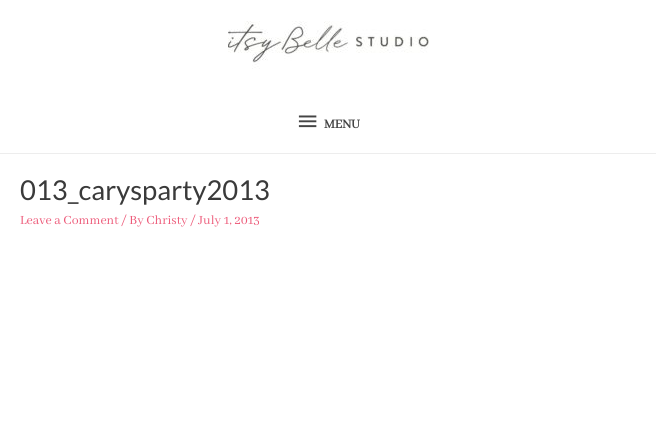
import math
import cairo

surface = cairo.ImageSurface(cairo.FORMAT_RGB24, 656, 441)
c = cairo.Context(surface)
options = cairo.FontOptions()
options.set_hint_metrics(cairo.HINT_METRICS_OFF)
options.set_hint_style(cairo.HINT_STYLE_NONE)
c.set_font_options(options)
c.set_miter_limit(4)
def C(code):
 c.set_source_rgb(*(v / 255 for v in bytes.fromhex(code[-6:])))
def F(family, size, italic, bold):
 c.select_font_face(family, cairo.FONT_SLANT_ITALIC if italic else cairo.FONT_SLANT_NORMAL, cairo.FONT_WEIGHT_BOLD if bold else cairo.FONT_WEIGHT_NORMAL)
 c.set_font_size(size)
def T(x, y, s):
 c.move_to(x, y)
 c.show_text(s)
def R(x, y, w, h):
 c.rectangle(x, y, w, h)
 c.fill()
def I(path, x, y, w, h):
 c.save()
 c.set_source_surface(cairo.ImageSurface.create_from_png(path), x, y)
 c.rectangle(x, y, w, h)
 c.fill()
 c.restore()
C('ffffff')
c.paint()
C('ededed')
R(0,153,656,1)
I('1.png',228,21,201,48)
I('2.png',298,115,19,13)
F('Abhaya Libre',13.7,0,1)
C('444444')
T(324,128,'MENU')
F('Lato',27.4,0,0)
C('3a3a3a')
T(20,200,'013_carysparty2013')
F('Abhaya Libre',13.7,0,0)
C('ed5a79')
T(20,224,'Leave a Comment / By Christy / July 1, 2013')
surface.write_to_png('o.png')
